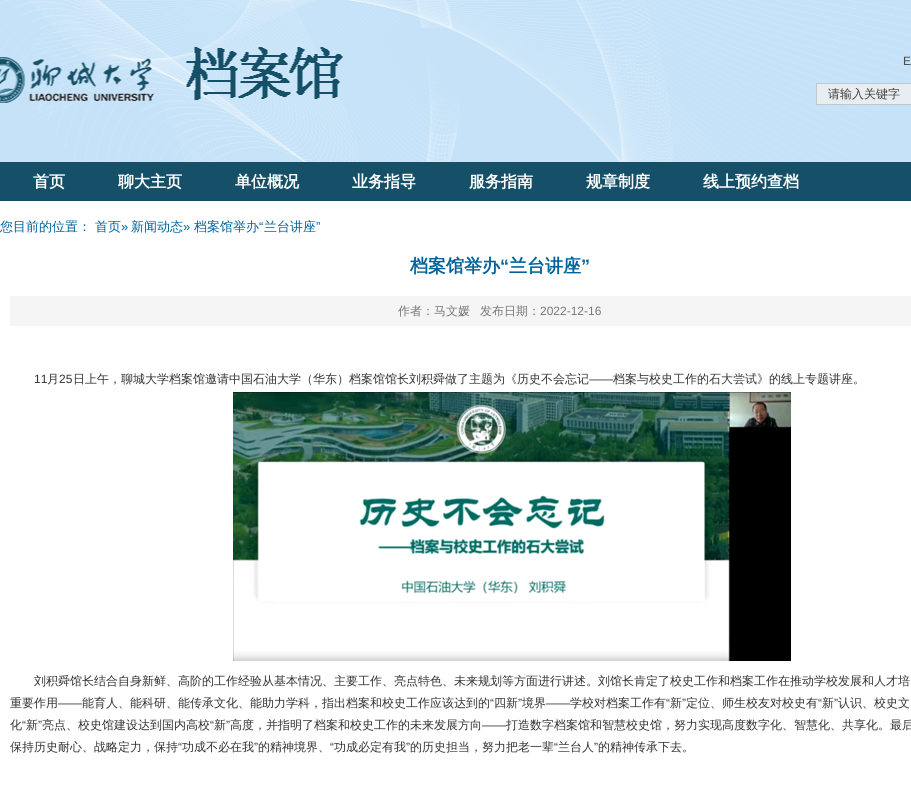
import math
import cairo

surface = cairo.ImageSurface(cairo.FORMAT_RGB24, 911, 806)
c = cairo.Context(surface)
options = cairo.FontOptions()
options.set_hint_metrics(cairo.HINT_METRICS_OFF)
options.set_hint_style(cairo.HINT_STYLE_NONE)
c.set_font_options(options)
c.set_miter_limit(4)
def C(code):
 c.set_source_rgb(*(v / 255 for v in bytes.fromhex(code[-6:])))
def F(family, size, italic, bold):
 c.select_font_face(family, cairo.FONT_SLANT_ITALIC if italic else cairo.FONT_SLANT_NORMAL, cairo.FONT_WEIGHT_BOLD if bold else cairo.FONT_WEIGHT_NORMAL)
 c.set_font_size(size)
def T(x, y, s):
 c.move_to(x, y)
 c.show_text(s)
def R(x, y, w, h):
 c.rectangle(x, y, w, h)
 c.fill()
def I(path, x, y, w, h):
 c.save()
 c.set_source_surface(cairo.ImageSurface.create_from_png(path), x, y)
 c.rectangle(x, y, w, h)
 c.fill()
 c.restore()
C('ffffff')
c.paint()
I('1.png',0,0,911,162)
F('Liberation Sans',12,0,0)
C('4a4b4a')
T(903,65,'E')
I('2.png',816,83,95,22)
F('WenQuanYi Zen Hei Medium',12,0,0)
C('3f3f3c')
T(828,98,'请输入关键字')
C('165068')
R(0,162,911,39)
F('WenQuanYi Zen Hei',16,0,1)
C('ffffff')
T(33,187,'首页')
T(118,187,'聊大主页')
T(235,187,'单位概况')
T(352,187,'业务指导')
T(469,187,'服务指南')
T(586,187,'规章制度')
T(703,187,'线上预约查档')
F('WenQuanYi Zen Hei Medium',13,0,0)
C('00629b')
T(0,231,'您目前的位置： 首页')
T(131,231,'新闻动态')
T(194,231,'档案馆举办')
F('Liberation Sans',13,0,0)
T(259,231,'“')
F('WenQuanYi Zen Hei Medium',13,0,0)
T(264,231,'兰台讲座')
F('Liberation Sans',13,0,0)
T(316,231,'”')
T(121,231,'»')
T(183,231,'»')
F('WenQuanYi Zen Hei',18,0,1)
T(410,272,'档案馆举办')
F('Liberation Sans',18,0,1)
T(500,272,'“')
F('WenQuanYi Zen Hei',18,0,1)
T(509,272,'兰台讲座')
F('Liberation Sans',18,0,1)
T(581,272,'”')
C('f5f5f5')
R(10,296,901,30)
F('WenQuanYi Zen Hei Medium',12,0,0)
C('777777')
T(398,315,'作者：马文媛')
T(480,315,'发布日期：')
F('Liberation Sans',12,0,0)
T(540,315,'2022-12-16')
C('323232')
T(34,383,'11')
F('WenQuanYi Zen Hei Medium',12,0,0)
T(47,383,'月')
F('Liberation Sans',12,0,0)
T(59,383,'25')
F('WenQuanYi Zen Hei Medium',12,0,0)
T(73,383,'日上午，聊城大学档案馆邀请中国石油大学（华东）档案馆馆长刘积舜做了主题为《历史不会忘记')
F('Liberation Sans',12,0,0)
T(589,383,'——')
F('WenQuanYi Zen Hei Medium',12,0,0)
T(613,383,'档案与校史工作的石大尝试》的线上专题讲座。')
I('3.png',233,392,558,269)
T(34,685,'刘积舜馆长结合自身新鲜、高阶的工作经验从基本情况、主要工作、亮点特色、未来规划等方面进行讲述。刘馆长肯定了校史工作和档案工作在推动学校发展和人才培')
T(10,707,'重要作用')
T(82,707,'能育人、能科研、能传承文化、能助力学科，指出档案和校史工作应该达到的')
F('Liberation Sans',12,0,0)
T(490,707,'“')
F('WenQuanYi Zen Hei Medium',12,0,0)
T(494,707,'四新')
F('Liberation Sans',12,0,0)
T(518,707,'”')
F('WenQuanYi Zen Hei Medium',12,0,0)
T(522,707,'境界')
T(570,707,'学校对档案工作有')
F('Liberation Sans',12,0,0)
T(666,707,'“')
F('WenQuanYi Zen Hei Medium',12,0,0)
T(670,707,'新')
F('Liberation Sans',12,0,0)
T(682,707,'”')
F('WenQuanYi Zen Hei Medium',12,0,0)
T(686,707,'定位、师生校友对校史有')
F('Liberation Sans',12,0,0)
T(818,707,'“')
F('WenQuanYi Zen Hei Medium',12,0,0)
T(822,707,'新')
F('Liberation Sans',12,0,0)
T(834,707,'”')
F('WenQuanYi Zen Hei Medium',12,0,0)
T(838,707,'认识、校史文')
F('Liberation Sans',12,0,0)
T(58,707,'——')
T(546,707,'——')
F('WenQuanYi Zen Hei Medium',12,0,0)
T(10,729,'化')
F('Liberation Sans',12,0,0)
T(22,729,'“')
F('WenQuanYi Zen Hei Medium',12,0,0)
T(26,729,'新')
F('Liberation Sans',12,0,0)
T(38,729,'”')
F('WenQuanYi Zen Hei Medium',12,0,0)
T(42,729,'亮点、校史馆建设达到国内高校')
F('Liberation Sans',12,0,0)
T(210,729,'“')
F('WenQuanYi Zen Hei Medium',12,0,0)
T(214,729,'新')
F('Liberation Sans',12,0,0)
T(226,729,'”')
F('WenQuanYi Zen Hei Medium',12,0,0)
T(230,729,'高度，并指明了档案和校史工作的未来发展方向')
F('Liberation Sans',12,0,0)
T(482,729,'——')
F('WenQuanYi Zen Hei Medium',12,0,0)
T(506,729,'打造数字档案馆和智慧校史馆，努力实现高度数字化、智慧化、共享化。最后')
T(10,751,'保持历史耐心、战略定力，保持')
F('Liberation Sans',12,0,0)
T(178,751,'“')
F('WenQuanYi Zen Hei Medium',12,0,0)
T(182,751,'功成不必在我')
F('Liberation Sans',12,0,0)
T(254,751,'”')
F('WenQuanYi Zen Hei Medium',12,0,0)
T(258,751,'的精神境界、')
F('Liberation Sans',12,0,0)
T(330,751,'“')
F('WenQuanYi Zen Hei Medium',12,0,0)
T(334,751,'功成必定有我')
F('Liberation Sans',12,0,0)
T(406,751,'”')
F('WenQuanYi Zen Hei Medium',12,0,0)
T(410,751,'的历史担当，努力把老一辈')
F('Liberation Sans',12,0,0)
T(554,751,'“')
F('WenQuanYi Zen Hei Medium',12,0,0)
T(558,751,'兰台人')
F('Liberation Sans',12,0,0)
T(594,751,'”')
F('WenQuanYi Zen Hei Medium',12,0,0)
T(598,751,'的精神传承下去。')
surface.write_to_png('o.png')
